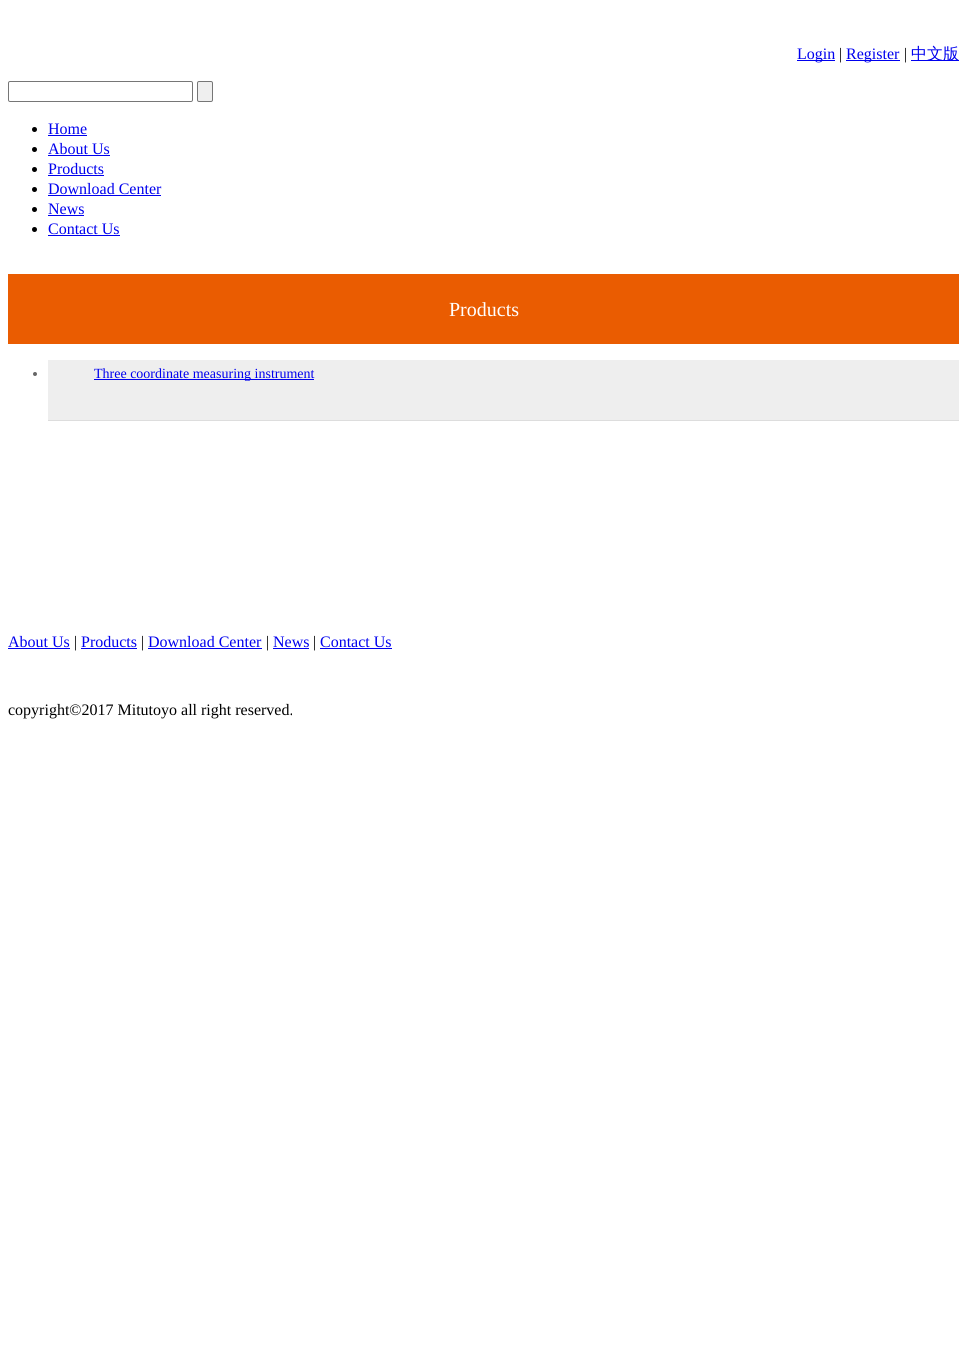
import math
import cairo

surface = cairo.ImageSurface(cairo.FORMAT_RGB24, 967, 1363)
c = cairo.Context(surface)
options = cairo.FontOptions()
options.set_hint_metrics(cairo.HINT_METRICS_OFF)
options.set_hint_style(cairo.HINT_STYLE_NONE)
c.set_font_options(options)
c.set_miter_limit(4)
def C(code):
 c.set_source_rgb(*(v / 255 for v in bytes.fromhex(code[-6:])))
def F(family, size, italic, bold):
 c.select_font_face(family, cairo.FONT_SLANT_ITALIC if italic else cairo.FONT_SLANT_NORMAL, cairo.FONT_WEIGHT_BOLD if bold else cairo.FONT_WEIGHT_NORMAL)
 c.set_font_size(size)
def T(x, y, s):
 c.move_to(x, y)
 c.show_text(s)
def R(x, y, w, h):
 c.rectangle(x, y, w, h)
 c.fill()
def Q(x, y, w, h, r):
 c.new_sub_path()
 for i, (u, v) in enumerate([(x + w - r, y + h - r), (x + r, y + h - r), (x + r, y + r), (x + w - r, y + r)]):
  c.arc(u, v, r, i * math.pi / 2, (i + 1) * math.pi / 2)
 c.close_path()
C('ffffff')
c.paint()
C('0000ee')
R(797,60,38,1)
F('Liberation Serif',16,0,0)
T(797,59,'Login')
C('000000')
T(839,59,'|')
C('0000ee')
R(846,60,54,1)
T(846,59,'Register')
C('000000')
T(904,59,'|')
C('0000ee')
R(911,60,48,1)
F('WenQuanYi Zen Hei Medium',16,0,0)
T(911,59,'中文版')
Q(8.5,81.5,184,20,1.5)
C('767676')
c.set_line_width(1)
c.stroke()
C('efefef')
Q(197.5,81.5,15,20,1.5)
c.fill_preserve()
C('767676')
c.stroke()
C('000000')
c.arc(34.5,129.5,2.5,0,2 * math.pi)
c.fill()
F('Liberation Serif',16,0,0)
C('0000ee')
T(48,134,'Home')
R(48,135,39,1)
C('000000')
c.new_path()
c.arc(34.5,149.5,2.5,0,2 * math.pi)
c.fill()
C('0000ee')
T(48,154,'About Us')
R(48,155,62,1)
C('000000')
c.new_path()
c.arc(34.5,169.5,2.5,0,2 * math.pi)
c.fill()
C('0000ee')
T(48,174,'Products')
R(48,175,56,1)
C('000000')
c.new_path()
c.arc(34.5,189.5,2.5,0,2 * math.pi)
c.fill()
C('0000ee')
T(48,194,'Download Center')
R(48,195,113,1)
C('000000')
c.new_path()
c.arc(34.5,209.5,2.5,0,2 * math.pi)
c.fill()
C('0000ee')
T(48,214,'News')
R(48,215,36,1)
C('000000')
c.new_path()
c.arc(34.5,229.5,2.5,0,2 * math.pi)
c.fill()
C('0000ee')
T(48,234,'Contact Us')
R(48,235,72,1)
C('ea5c01')
R(8,274,951,70)
F('Liberation Serif',20,0,0)
C('ffffff')
T(449,316,'Products')
C('eeeeee')
R(48,360,911,60)
C('dddddd')
R(48,420,911,1)
C('666666')
c.new_path()
c.arc(35,374,2,0,2 * math.pi)
c.fill()
C('0000ee')
R(94,379,220,1)
F('Liberation Serif',14,0,0)
T(94,378,'Three coordinate measuring instrument')
F('Liberation Serif',16,0,0)
T(8,647,'About Us')
R(8,648,62,1)
C('000000')
T(74,647,'|')
C('0000ee')
T(81,647,'Products')
R(81,648,56,1)
C('000000')
T(141,647,'|')
C('0000ee')
T(148,647,'Download Center')
R(148,648,114,1)
C('000000')
T(266,647,'|')
C('0000ee')
T(273,647,'News')
R(273,648,36,1)
C('000000')
T(313,647,'|')
C('0000ee')
T(320,647,'Contact Us')
R(320,648,72,1)
C('000000')
T(8,715,'copyright©2017 Mitutoyo all right reserved.')
surface.write_to_png('o.png')
